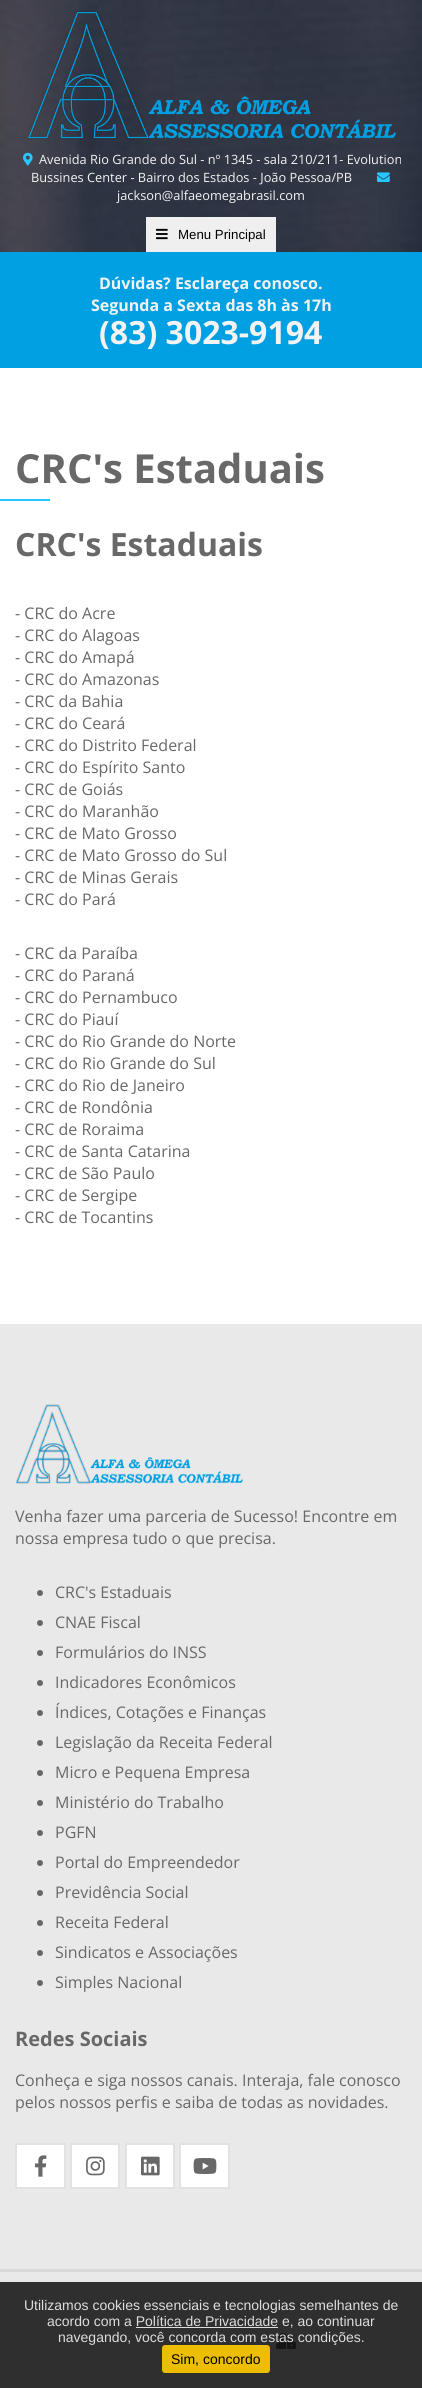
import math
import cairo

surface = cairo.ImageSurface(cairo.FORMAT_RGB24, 422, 2388)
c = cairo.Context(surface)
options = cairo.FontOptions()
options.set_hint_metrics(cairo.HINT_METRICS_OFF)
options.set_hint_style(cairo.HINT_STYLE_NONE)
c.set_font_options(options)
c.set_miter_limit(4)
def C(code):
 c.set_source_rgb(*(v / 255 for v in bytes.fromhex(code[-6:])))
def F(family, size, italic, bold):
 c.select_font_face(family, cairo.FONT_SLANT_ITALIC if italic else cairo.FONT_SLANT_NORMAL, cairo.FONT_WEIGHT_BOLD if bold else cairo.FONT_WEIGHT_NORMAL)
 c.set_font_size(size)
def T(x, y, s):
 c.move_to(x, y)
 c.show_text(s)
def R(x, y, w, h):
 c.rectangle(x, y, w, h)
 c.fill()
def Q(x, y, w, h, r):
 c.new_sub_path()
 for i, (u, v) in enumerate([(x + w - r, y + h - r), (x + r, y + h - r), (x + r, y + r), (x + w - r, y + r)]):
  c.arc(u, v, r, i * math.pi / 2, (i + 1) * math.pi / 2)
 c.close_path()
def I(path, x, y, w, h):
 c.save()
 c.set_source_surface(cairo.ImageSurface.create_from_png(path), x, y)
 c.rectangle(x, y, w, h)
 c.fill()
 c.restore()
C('ffffff')
c.paint()
I('1.png',0,0,422,252)
I('2.png',28,10,368,130)
I('3.png',23,152,10,14)
F('Open Sans',12.8,0,0)
C('f3f3f3')
T(39,164,'Avenida Rio Grande do Sul - nº 1345 - sala 210/211- Evolution')
T(31,182,'Bussines Center - Bairro dos Estados - João Pessoa/PB')
I('4.png',377,172,13,10)
T(117,200,'jackson@alfaeomegabrasil.com')
C('efefef')
R(146,217,130,35)
I('5.png',156,228,12,12)
F('Liberation Sans',13.25,0,0)
C('000000')
T(178,239,'Menu Principal')
C('00a0e3')
R(0,252,422,116)
F('Open Sans',16,0,1)
C('f3f3f3')
T(99,289,'Dúvidas? Esclareça conosco.')
T(91,311,'Segunda a Sexta das 8h às 17h')
F('Open Sans',32,0,1)
T(99,344,'(83) 3023-9194')
F('Open Sans',40,0,1)
C('686868')
T(15,483,'CRC\'s Estaduais')
C('26c7fe')
R(0,499,50,2)
F('Open Sans',32,0,1)
C('686868')
T(15,556,'CRC\'s Estaduais')
F('Open Sans',16,0,0)
T(15,619,'- CRC do Acre')
T(15,641,'- CRC do Alagoas')
T(15,663,'- CRC do Amapá')
T(15,685,'- CRC do Amazonas')
T(15,707,'- CRC da Bahia')
T(15,729,'- CRC do Ceará')
T(15,751,'- CRC do Distrito Federal')
T(15,773,'- CRC do Espírito Santo')
T(15,795,'- CRC de Goiás')
T(15,817,'- CRC do Maranhão')
T(15,839,'- CRC de Mato Grosso')
T(15,861,'- CRC de Mato Grosso do Sul')
T(15,883,'- CRC de Minas Gerais')
T(15,905,'- CRC do Pará')
T(15,959,'- CRC da Paraíba')
T(15,981,'- CRC do Paraná')
T(15,1003,'- CRC do Pernambuco')
T(15,1025,'- CRC do Piauí')
T(15,1047,'- CRC do Rio Grande do Norte')
T(15,1069,'- CRC do Rio Grande do Sul')
T(15,1091,'- CRC do Rio de Janeiro')
T(15,1113,'- CRC de Rondônia')
T(15,1135,'- CRC de Roraima')
T(15,1157,'- CRC de Santa Catarina')
T(15,1179,'- CRC de São Paulo')
T(15,1201,'- CRC de Sergipe')
T(15,1223,'- CRC de Tocantins')
C('e9e9e9')
R(0,1324,422,945)
I('6.png',15,1404,228,80)
C('686868')
T(15,1522,'Venha fazer uma parceria de Sucesso! Encontre em')
T(15,1544,'nossa empresa tudo o que precisa.')
c.new_path()
c.arc(40,1593,3,0,2 * math.pi)
c.fill()
T(55,1598,'CRC\'s Estaduais')
c.new_path()
c.arc(40,1623,3,0,2 * math.pi)
c.fill()
T(55,1628,'CNAE Fiscal')
c.new_path()
c.arc(40,1653,3,0,2 * math.pi)
c.fill()
T(55,1658,'Formulários do INSS')
c.new_path()
c.arc(40,1683,3,0,2 * math.pi)
c.fill()
T(55,1688,'Indicadores Econômicos')
c.new_path()
c.arc(40,1713,3,0,2 * math.pi)
c.fill()
T(55,1718,'Índices, Cotações e Finanças')
c.new_path()
c.arc(40,1743,3,0,2 * math.pi)
c.fill()
T(55,1748,'Legislação da Receita Federal')
c.new_path()
c.arc(40,1773,3,0,2 * math.pi)
c.fill()
T(55,1778,'Micro e Pequena Empresa')
c.new_path()
c.arc(40,1803,3,0,2 * math.pi)
c.fill()
T(55,1808,'Ministério do Trabalho')
c.new_path()
c.arc(40,1833,3,0,2 * math.pi)
c.fill()
T(55,1838,'PGFN')
c.new_path()
c.arc(40,1863,3,0,2 * math.pi)
c.fill()
T(55,1868,'Portal do Empreendedor')
c.new_path()
c.arc(40,1893,3,0,2 * math.pi)
c.fill()
T(55,1898,'Previdência Social')
c.new_path()
c.arc(40,1923,3,0,2 * math.pi)
c.fill()
T(55,1928,'Receita Federal')
c.new_path()
c.arc(40,1953,3,0,2 * math.pi)
c.fill()
T(55,1958,'Sindicatos e Associações')
c.new_path()
c.arc(40,1983,3,0,2 * math.pi)
c.fill()
T(55,1988,'Simples Nacional')
F('Open Sans',20,0,1)
T(15,2046,'Redes Sociais')
F('Open Sans',16,0,0)
T(15,2086,'Conheça e siga nossos canais. Interaja, fale conosco')
T(15,2108,'pelos nossos perfis e saiba de todas as novidades.')
C('ffffff')
c.rectangle(16,2144,49,44)
c.fill_preserve()
C('e2e2e2')
c.stroke()
I('7.png',34,2155,13,22)
C('ffffff')
c.rectangle(71,2144,48,44)
c.fill_preserve()
C('e2e2e2')
c.stroke()
I('8.png',86,2156,19,20)
C('ffffff')
c.rectangle(126,2144,48,44)
c.fill_preserve()
C('e2e2e2')
c.stroke()
I('9.png',141,2156,19,20)
C('ffffff')
c.rectangle(180,2144,49,44)
c.fill_preserve()
C('e2e2e2')
c.stroke()
I('10.png',193,2158,24,16)
C('e9e9e9')
R(0,2272,422,116)
C('d9d9d9')
R(0,2269,422,3)
I('11.png',276,2333,20,16)
c.set_source_rgba(0,0,0,0.8)
R(0,2282,422,106)
F('Liberation Sans',14,0,0)
C('dddddd')
T(24,2310,'Utilizamos cookies essenciais e tecnologias semelhantes de')
T(47,2326,'acordo com a Política de Privacidade e, ao continuar')
R(136,2327,142,1)
T(58,2342,'navegando, você concorda com estas condições.')
C('edbd00')
Q(162,2345,108,28,3)
c.fill()
C('000000')
T(171,2364,'Sim, concordo')
surface.write_to_png('o.png')
